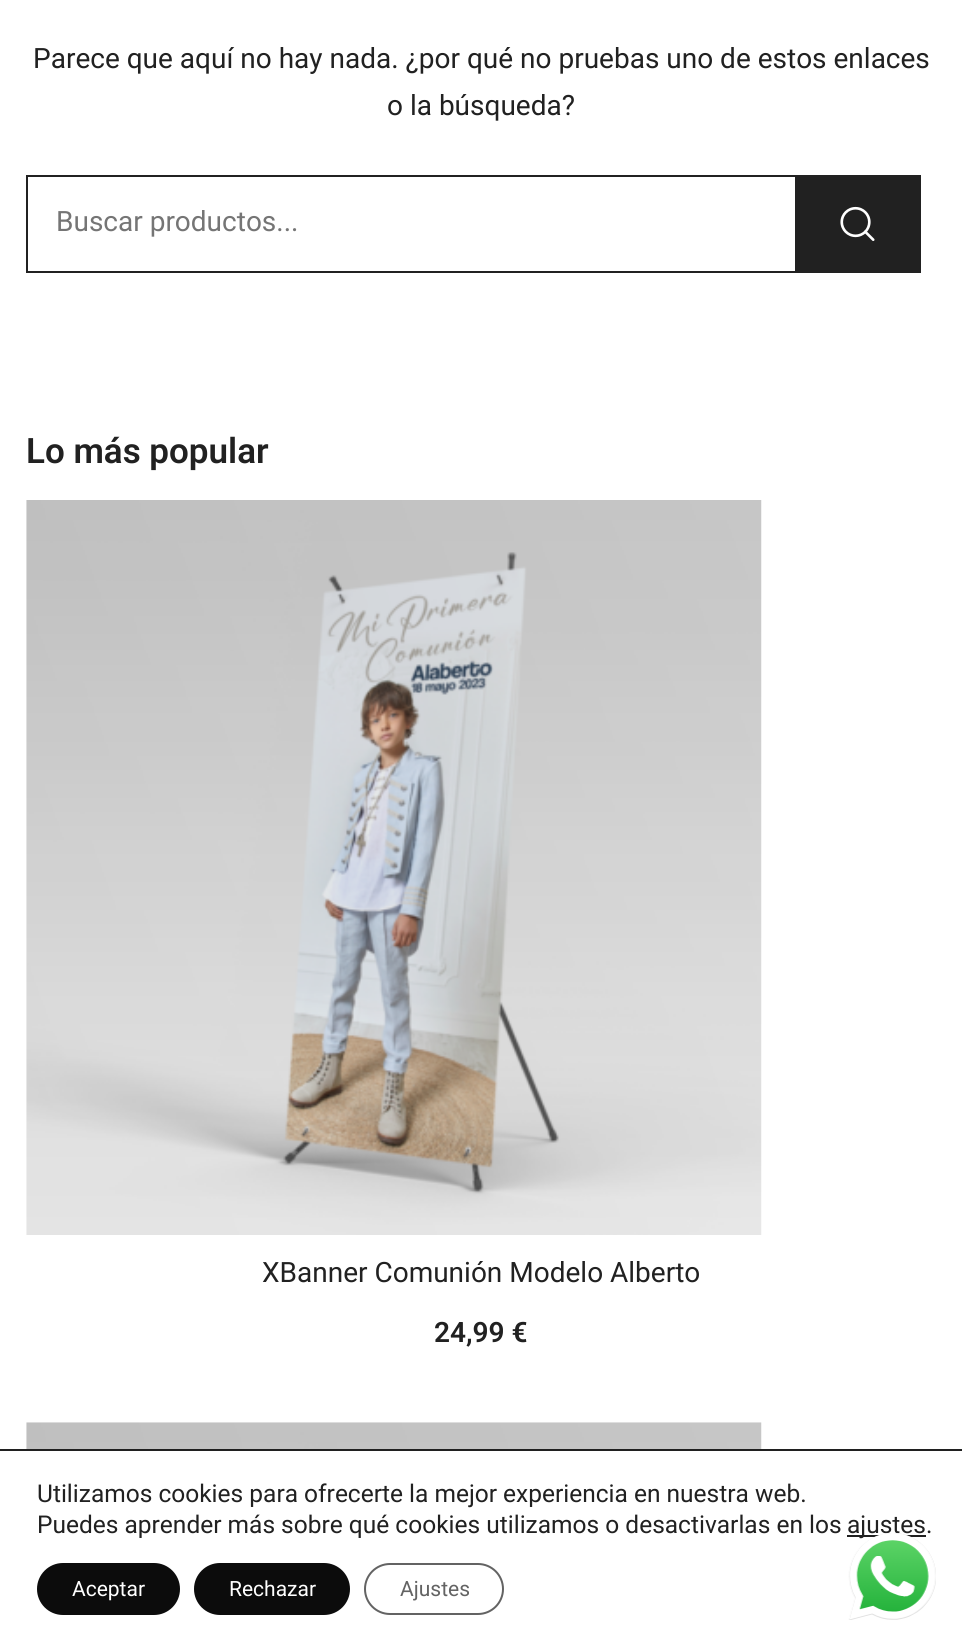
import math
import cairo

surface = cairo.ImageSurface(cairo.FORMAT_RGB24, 962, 1646)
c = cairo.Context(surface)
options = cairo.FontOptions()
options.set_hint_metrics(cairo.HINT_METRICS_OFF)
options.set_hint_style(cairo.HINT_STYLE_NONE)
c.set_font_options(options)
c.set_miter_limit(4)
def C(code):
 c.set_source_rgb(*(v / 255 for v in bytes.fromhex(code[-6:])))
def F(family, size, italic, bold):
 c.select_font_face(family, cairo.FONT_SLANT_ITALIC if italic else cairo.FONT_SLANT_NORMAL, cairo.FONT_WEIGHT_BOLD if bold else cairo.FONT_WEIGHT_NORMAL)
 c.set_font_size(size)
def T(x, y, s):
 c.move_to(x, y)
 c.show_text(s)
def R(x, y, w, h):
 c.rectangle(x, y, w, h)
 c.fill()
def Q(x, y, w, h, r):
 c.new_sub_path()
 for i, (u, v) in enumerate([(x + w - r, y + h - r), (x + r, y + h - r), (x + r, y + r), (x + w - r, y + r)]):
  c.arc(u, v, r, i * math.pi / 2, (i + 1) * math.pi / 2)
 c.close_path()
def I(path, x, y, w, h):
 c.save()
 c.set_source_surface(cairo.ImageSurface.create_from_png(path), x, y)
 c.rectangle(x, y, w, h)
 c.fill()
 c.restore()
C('ffffff')
c.paint()
F('Roboto',28,0,0)
C('212121')
T(33,68,'Parece que aquí no hay nada. ¿por qué no pruebas uno de estos enlaces')
T(387,115,'o la búsqueda?')
c.rectangle(27,176,775,96)
c.stroke()
C('757575')
T(56,231,'Buscar productos...')
C('212121')
R(795,175,126,98)
I('1.png',840,206,35,35)
F('Roboto SemiBold',35,0,0)
T(26,463,'Lo más popular')
I('2.png',26,500,736,735)
F('Roboto',28,0,0)
T(262,1282,'XBanner Comunión Modelo Alberto')
F('Roboto SemiBold',28,0,0)
T(434,1342,'24,99 €')
I('3.png',26,1422,736,27)
C('202020')
R(0,1449,962,2)
F('Roboto',24.5,0,0)
C('212121')
T(37,1502,'Utilizamos cookies para ofrecerte la mejor experiencia en nuestra web.')
T(37,1533,'Puedes aprender más sobre qué cookies utilizamos o desactivarlas en los')
C('202020')
R(847,1535,79,2)
C('212121')
T(847,1533,'ajustes.')
C('0c0c0c')
Q(37,1563,143,52,26)
c.fill()
F('Roboto',21,0,0)
C('ffffff')
T(72,1596,'Aceptar')
C('0c0c0c')
Q(194,1563,156,52,26)
c.fill()
C('ffffff')
T(229,1596,'Rechazar')
Q(365,1564,138,50,25)
C('636363')
c.stroke()
T(400,1596,'Ajustes')
I('4.png',848,1533,88,87)
surface.write_to_png('o.png')
